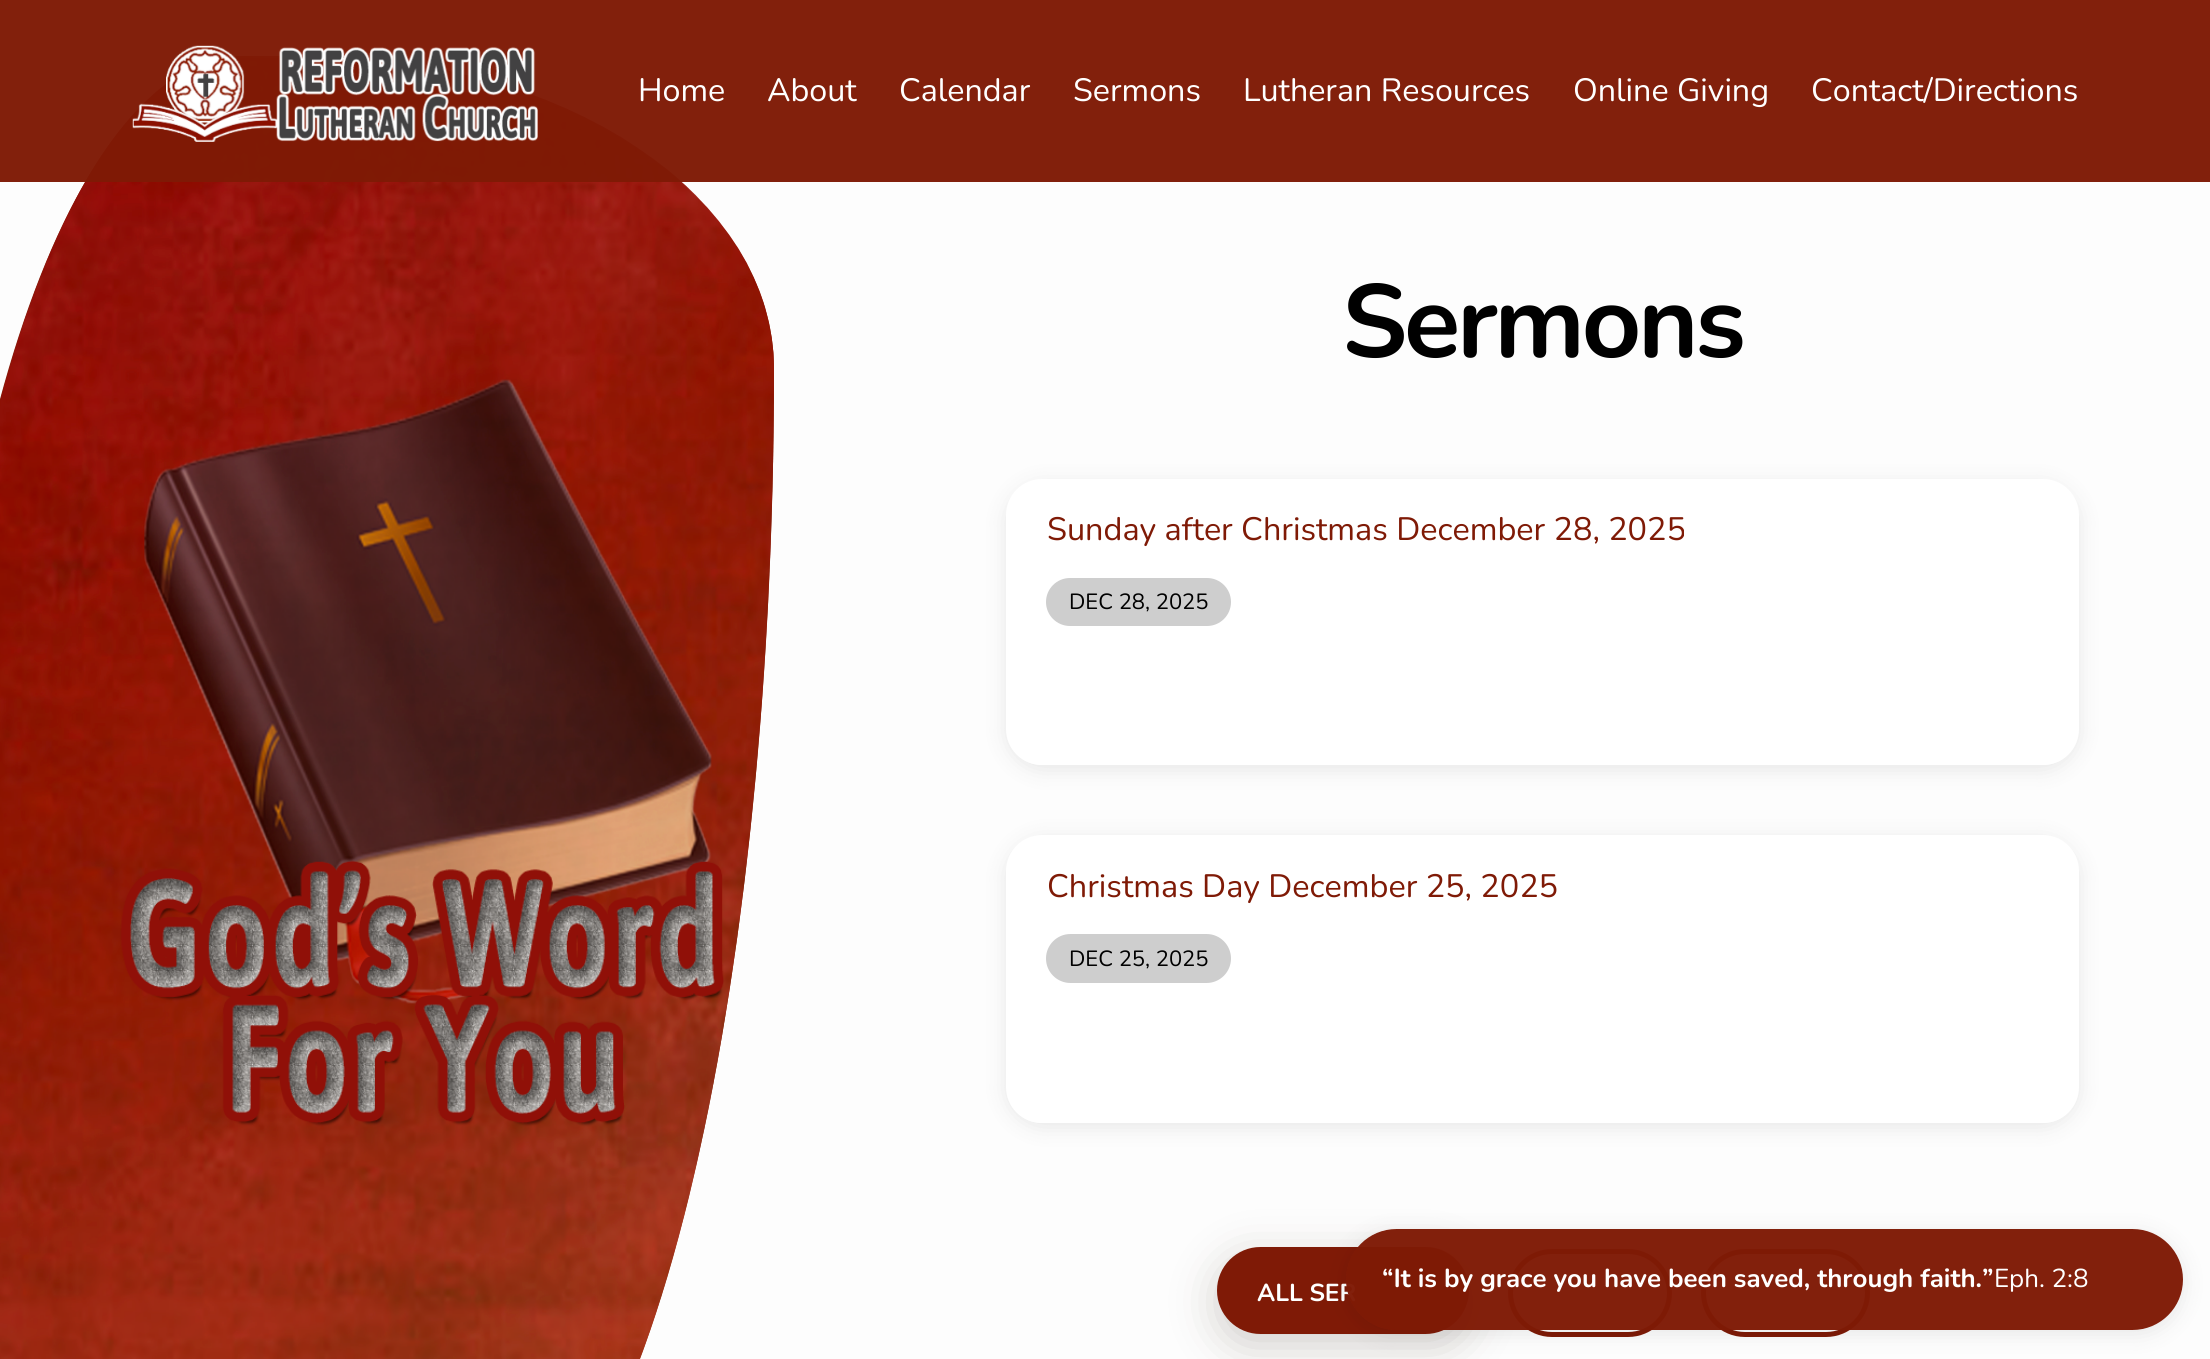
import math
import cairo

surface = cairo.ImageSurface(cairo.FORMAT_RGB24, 2210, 1359)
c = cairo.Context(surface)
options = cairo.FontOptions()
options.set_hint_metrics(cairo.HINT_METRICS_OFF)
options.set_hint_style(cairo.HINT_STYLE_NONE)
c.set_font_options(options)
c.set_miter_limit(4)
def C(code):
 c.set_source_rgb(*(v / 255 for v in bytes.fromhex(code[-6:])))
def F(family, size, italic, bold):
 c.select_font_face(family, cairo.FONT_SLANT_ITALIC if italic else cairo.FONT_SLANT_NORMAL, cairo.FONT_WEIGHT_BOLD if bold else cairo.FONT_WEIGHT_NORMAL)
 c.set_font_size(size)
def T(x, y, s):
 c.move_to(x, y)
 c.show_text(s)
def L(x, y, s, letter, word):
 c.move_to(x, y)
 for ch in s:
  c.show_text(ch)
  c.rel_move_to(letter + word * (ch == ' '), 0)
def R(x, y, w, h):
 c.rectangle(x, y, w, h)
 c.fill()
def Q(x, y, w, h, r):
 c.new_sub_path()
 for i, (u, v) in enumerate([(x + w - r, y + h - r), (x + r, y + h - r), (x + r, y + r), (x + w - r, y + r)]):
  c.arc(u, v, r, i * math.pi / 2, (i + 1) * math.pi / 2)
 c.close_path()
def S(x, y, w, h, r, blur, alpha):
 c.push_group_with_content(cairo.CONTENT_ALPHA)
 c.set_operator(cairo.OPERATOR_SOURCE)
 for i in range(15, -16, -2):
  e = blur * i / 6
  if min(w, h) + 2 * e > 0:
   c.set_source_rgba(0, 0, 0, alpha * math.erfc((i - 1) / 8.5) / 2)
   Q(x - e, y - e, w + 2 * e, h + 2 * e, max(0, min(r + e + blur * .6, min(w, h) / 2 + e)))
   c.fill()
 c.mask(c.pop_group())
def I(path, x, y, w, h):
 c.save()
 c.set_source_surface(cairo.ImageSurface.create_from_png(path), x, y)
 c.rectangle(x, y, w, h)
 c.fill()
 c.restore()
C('fdfdfd')
c.paint()
C('83210d')
c.new_path()
c.move_to(241,58)
c.line_to(307,58)
c.curve_to(565,58,774,197,774,369)
c.curve_to(774,1031,636,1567,467,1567)
c.line_to(441,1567)
c.curve_to(161,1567,-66,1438,-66,1279)
c.line_to(-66,956)
c.curve_to(-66,460,71,58,241,58)
c.close_path()
c.fill()
I('2.png',0,56,774,1303)
c.set_source_rgba(0.498,0.102,0.024,0.97)
R(0,0,2210,182)
I('1.png',132,45,406,97)
F('Nunito',32.25,0,0)
C('ffffff')
T(638,101,'Home')
T(767,101,'About')
T(899,101,'Calendar')
T(1073,101,'Sermons')
T(1243,101,'Lutheran Resources')
T(1573,101,'Online Giving')
T(1811,101,'Contact/Directions')
F('Nunito',103.5,0,1)
C('000000')
L(1342,357,'Sermons',-3.25,0)
C('000000')
S(1006,484,1073,286,36,11,.09)
C('ffffff')
Q(1006,479,1073,286,36)
c.fill()
F('Nunito',32.4,0,0)
C('7f1a06')
T(1047,540,'Sunday after Christmas December 28, 2025')
C('cecece')
Q(1046,578,185,48,24)
c.fill()
F('Nunito',22,0,0)
C('000000')
T(1069,609,'DEC 28, 2025')
c.save()
Q(1006,479,1073,286,36)
c.clip()
gradient = cairo.LinearGradient(1542,731,1542,765)
gradient.add_color_stop_rgba(0,1,1,1,0)
gradient.add_color_stop_rgba(1,1,1,1,.9)
c.set_source(gradient)
R(1006,732,1073,33)
c.restore()
C('000000')
S(1006,839,1073,288,36,11,.09)
C('ffffff')
Q(1006,835,1073,288,36)
c.fill()
F('Nunito',32.4,0,0)
C('7f1a06')
T(1047,897,'Christmas Day December 25, 2025')
C('cecece')
Q(1046,934,185,49,24.5)
c.fill()
F('Nunito',22,0,0)
C('000000')
T(1069,966,'DEC 25, 2025')
c.save()
Q(1006,835,1073,288,36)
c.clip()
gradient = cairo.LinearGradient(1542,1089,1542,1123)
gradient.add_color_stop_rgba(0,1,1,1,0)
gradient.add_color_stop_rgba(1,1,1,1,.9)
c.set_source(gradient)
R(1006,1090,1073,33)
c.restore()
C('241606')
S(1217,1258,252,88,44,22.5,.2)
C('7f1a06')
Q(1217,1247,252,87,43.5)
c.fill()
F('Nunito',24.5,0,1)
C('ffffff')
T(1257,1301,'ALL SER')
Q(1510.5,1251.5,159,83,41.5)
C('7f1a06')
c.set_line_width(5)
c.stroke()
Q(1703.5,1251.5,164,83,41.5)
c.stroke()
c.save()
c.set_fill_rule(cairo.FILL_RULE_EVEN_ODD)
c.new_path()
c.move_to(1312,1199)
c.line_to(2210,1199)
c.line_to(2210,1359)
c.line_to(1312,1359)
c.close_path()
c.move_to(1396.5,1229)
c.line_to(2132.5,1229)
c.curve_to(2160.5,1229,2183,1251.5,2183,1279.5)
c.curve_to(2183,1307.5,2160.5,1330,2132.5,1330)
c.line_to(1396.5,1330)
c.curve_to(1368.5,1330,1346,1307.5,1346,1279.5)
c.curve_to(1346,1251.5,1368.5,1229,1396.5,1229)
c.close_path()
c.clip()
C('000000')
S(1346,1233,837,101,50.5,11,.09)
c.restore()
c.set_source_rgba(0.498,0.102,0.024,0.97)
Q(1346,1229,837,101,50.5)
c.fill()
F('Nunito',25.9,0,1)
C('ffffff')
T(1382,1287,'“It is by grace you have been saved, through faith.”')
F('Nunito',25.9,0,0)
T(1994,1287,'Eph. 2:8')
surface.write_to_png('o.png')
